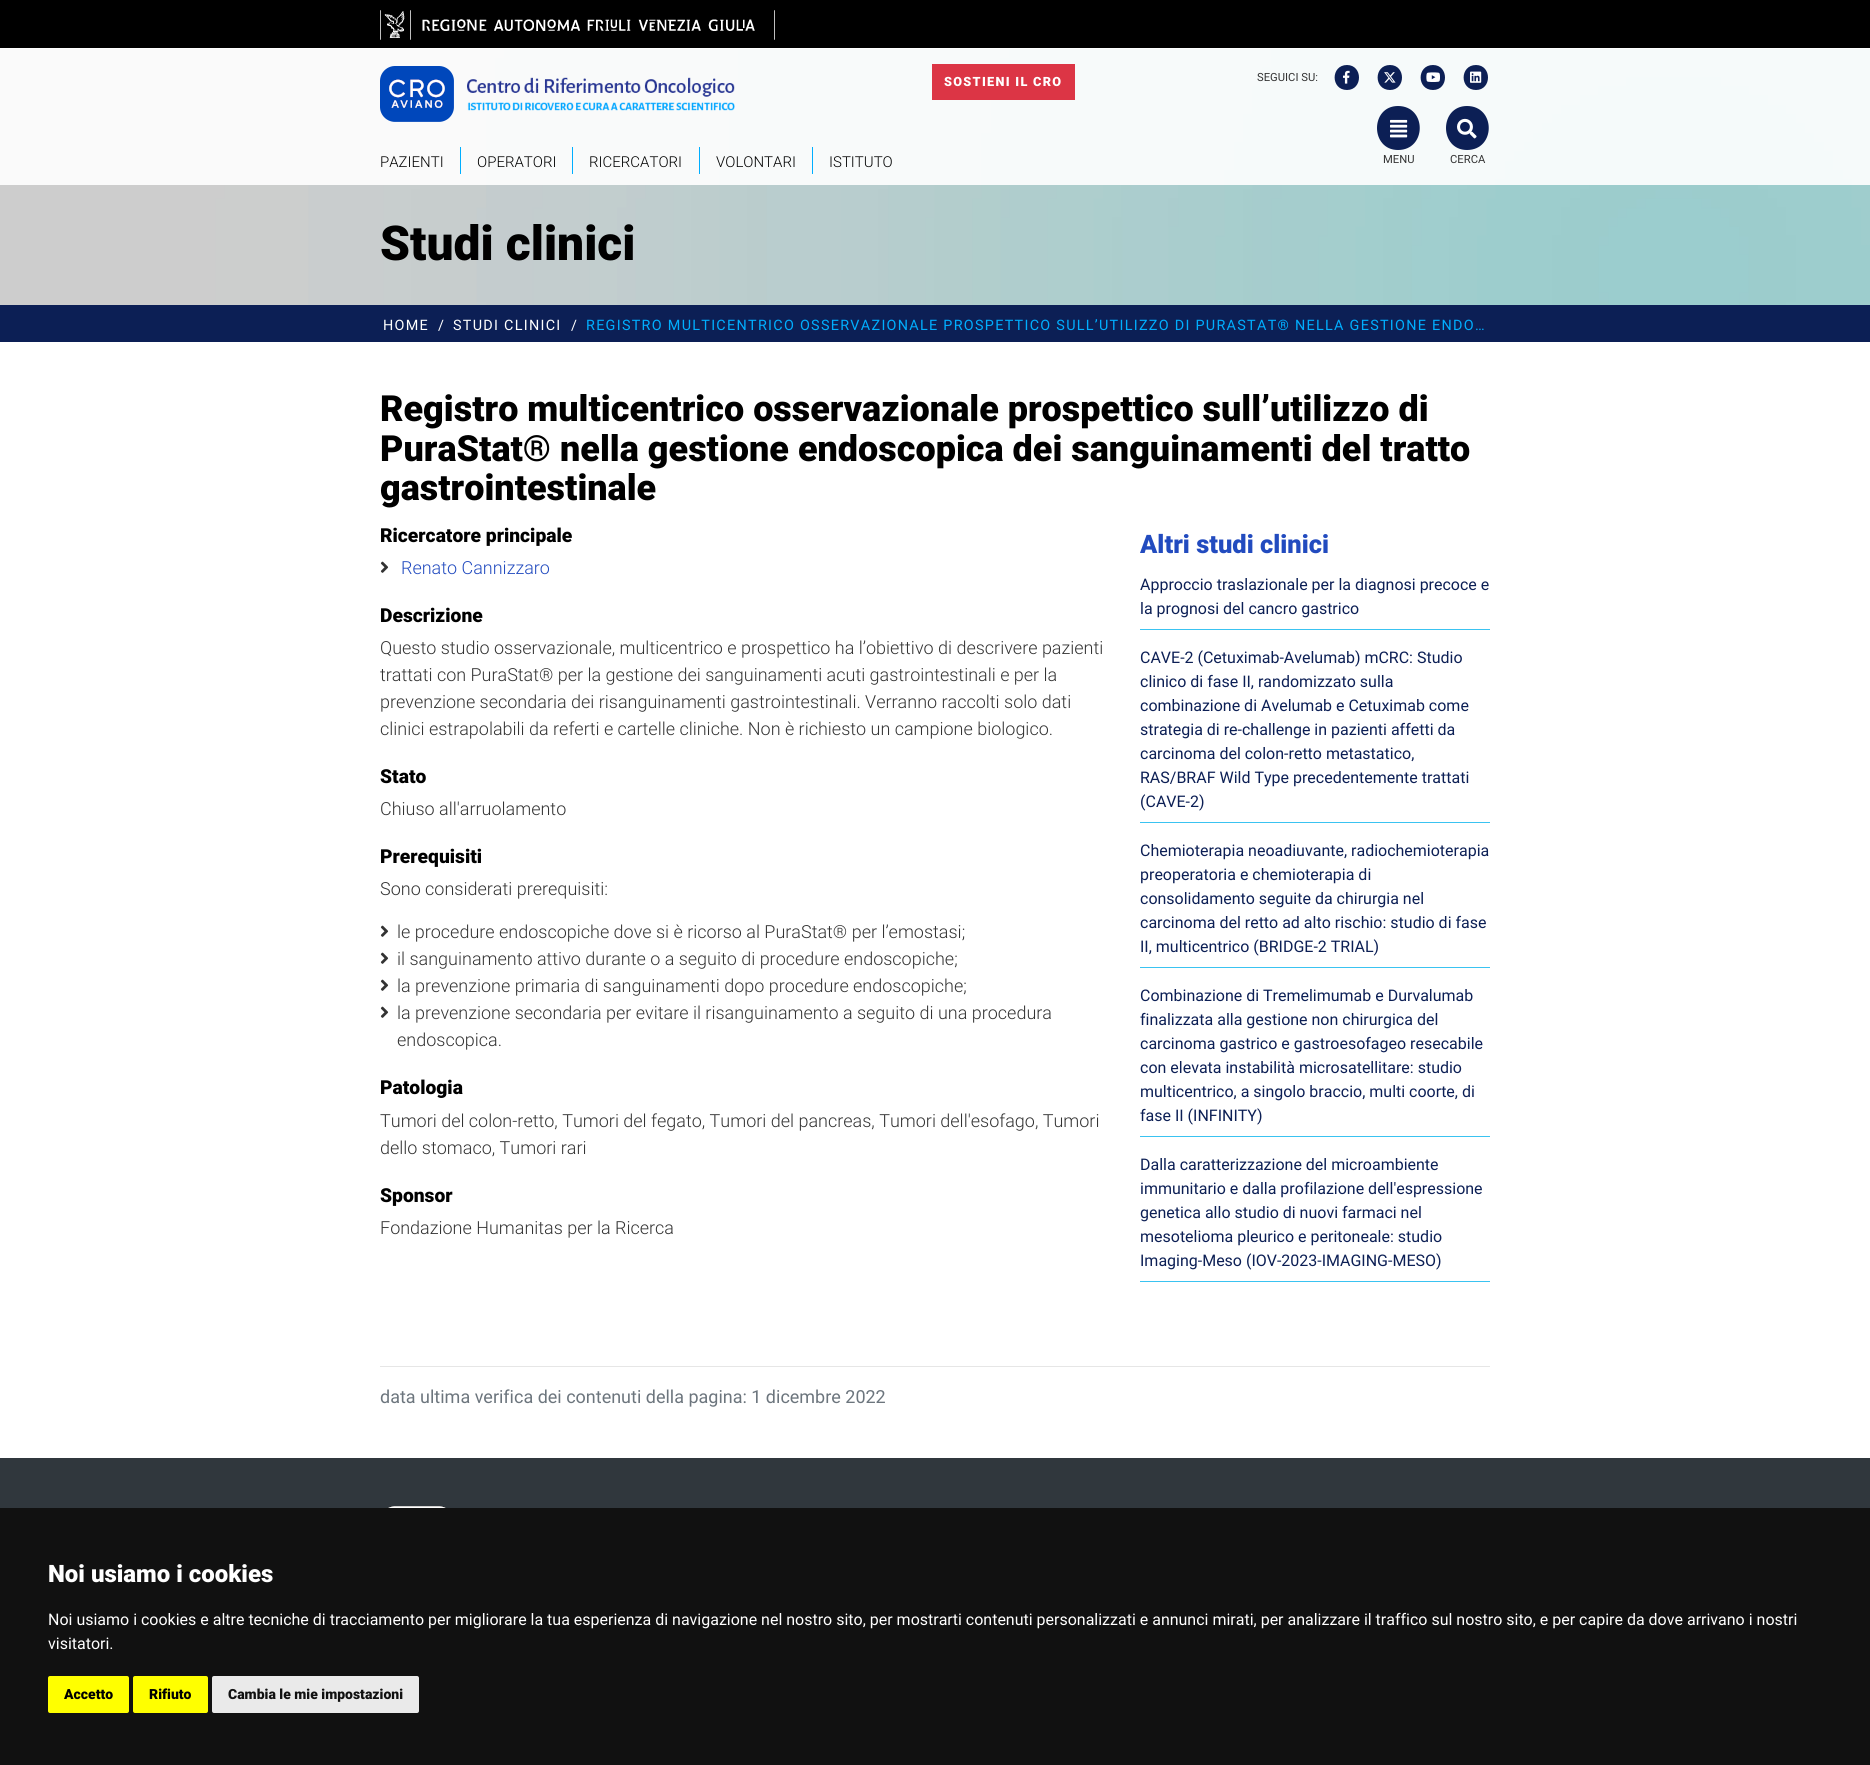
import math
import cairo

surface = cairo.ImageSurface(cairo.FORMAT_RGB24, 1870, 1765)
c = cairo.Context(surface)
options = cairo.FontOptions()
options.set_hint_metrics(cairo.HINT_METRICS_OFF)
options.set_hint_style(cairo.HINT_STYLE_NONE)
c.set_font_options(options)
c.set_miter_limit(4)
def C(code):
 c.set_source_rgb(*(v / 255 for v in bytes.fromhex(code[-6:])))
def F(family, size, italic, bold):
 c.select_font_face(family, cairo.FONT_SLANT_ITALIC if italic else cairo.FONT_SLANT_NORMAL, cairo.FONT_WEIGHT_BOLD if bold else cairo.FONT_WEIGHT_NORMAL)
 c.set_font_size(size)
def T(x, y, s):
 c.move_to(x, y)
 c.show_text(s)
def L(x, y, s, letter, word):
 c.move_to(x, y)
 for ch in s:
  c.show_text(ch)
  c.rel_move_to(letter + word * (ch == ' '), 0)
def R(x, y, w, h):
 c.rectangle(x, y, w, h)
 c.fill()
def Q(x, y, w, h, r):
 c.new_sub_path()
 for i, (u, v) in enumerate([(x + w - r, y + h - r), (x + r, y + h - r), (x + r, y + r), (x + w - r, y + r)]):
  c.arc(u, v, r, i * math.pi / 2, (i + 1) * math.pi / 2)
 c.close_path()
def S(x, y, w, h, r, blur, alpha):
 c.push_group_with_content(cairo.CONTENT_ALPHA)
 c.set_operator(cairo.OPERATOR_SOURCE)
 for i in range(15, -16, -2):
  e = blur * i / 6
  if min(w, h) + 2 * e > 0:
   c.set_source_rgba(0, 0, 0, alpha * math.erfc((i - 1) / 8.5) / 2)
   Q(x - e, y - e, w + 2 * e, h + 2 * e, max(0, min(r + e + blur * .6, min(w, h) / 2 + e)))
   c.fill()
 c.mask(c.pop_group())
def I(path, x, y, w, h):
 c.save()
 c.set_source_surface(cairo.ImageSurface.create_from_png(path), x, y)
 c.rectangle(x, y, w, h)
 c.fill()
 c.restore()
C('ffffff')
c.paint()
C('000000')
R(0,0,1870,48)
C('000000')
S(0,58,1870,137,0,10,.3)
I('1.png',380,10,395,30)
I('10.png',0,49,1870,256)
c.set_source_rgba(1,1,1,0.9)
R(0,48,1870,137)
I('2.png',380,66,74,56)
I('3.png',467,77,268,34)
C('dc3545')
R(932,64,143,36)
F('Roboto Black',12.75,0,0)
C('ffffff')
L(944,86,'SOSTIENI IL CRO',1.28,0)
F('Roboto',11.25,0,0)
C('333333')
T(1257,81,'SEGUICI SU:')
C('0c1f55')
c.new_path()
c.move_to(1347,65)
c.curve_to(1330.5,65,1330.5,90,1347,90)
c.curve_to(1363,90,1363,65,1347,65)
c.close_path()
c.fill()
I('4.png',1343,70,7,14)
c.new_path()
c.move_to(1390,65)
c.curve_to(1373.5,65,1373.5,90,1390,90)
c.curve_to(1406,90,1406,65,1390,65)
c.close_path()
c.fill()
I('5.png',1384,72,12,11)
c.new_path()
c.move_to(1433,65)
c.curve_to(1416.5,65,1416.5,90,1433,90)
c.curve_to(1449,90,1449,65,1433,65)
c.close_path()
c.fill()
I('6.png',1426,72,14,10)
c.new_path()
c.move_to(1476,65)
c.curve_to(1459.5,65,1459.5,90,1476,90)
c.curve_to(1492,90,1492,65,1476,65)
c.close_path()
c.fill()
I('7.png',1470,71,12,12)
c.new_path()
c.move_to(1398,106)
c.curve_to(1370,106,1370,150,1398,150)
c.curve_to(1427,150,1427,106,1398,106)
c.close_path()
c.fill()
I('8.png',1390,119,18,19)
C('333333')
T(1383,163,'MENU')
C('0c1f55')
c.new_path()
c.move_to(1467,106)
c.curve_to(1439,106,1439,150,1467,150)
c.curve_to(1496,150,1496,106,1467,106)
c.close_path()
c.fill()
I('9.png',1457,118,20,21)
C('333333')
T(1450,163,'CERCA')
C('00aeff')
R(460,147,1,27)
F('Roboto Light',15,0,0)
C('000000')
T(380,167,'PAZIENTI')
C('00aeff')
R(572,147,1,27)
C('000000')
T(477,167,'OPERATORI')
C('00aeff')
R(699,147,1,27)
C('000000')
T(589,167,'RICERCATORI')
C('00aeff')
R(812,147,1,27)
C('000000')
T(716,167,'VOLONTARI')
T(829,167,'ISTITUTO')
F('Roboto Black',48,0,0)
T(380,260,'Studi clinici')
C('0c1f55')
R(0,305,1870,37)
F('Roboto',14.4,0,0)
C('ffffff')
L(383,330,'HOME',1.28,0)
L(438,330,'/',1.28,0)
L(453,330,'STUDI CLINICI',1.28,0)
L(571,330,'/',1.28,0)
C('00aeff')
L(586,330,'REGISTRO MULTICENTRICO OSSERVAZIONALE PROSPETTICO SULL’UTILIZZO DI PURASTAT® NELLA GESTIONE ENDO…',1.28,0)
F('Roboto Black',36,0,0)
C('000000')
T(380,421,'Registro multicentrico osservazionale prospettico sull’utilizzo di')
T(380,461,'PuraStat® nella gestione endoscopica dei sanguinamenti del tratto')
T(380,500,'gastrointestinale')
F('Roboto Black',19.25,0,0)
T(380,542,'Ricercatore principale')
I('11.png',380,561,9,12)
F('Roboto Light',18,0,0)
C('224bbf')
T(401,574,'Renato Cannizzaro')
F('Roboto Black',19.25,0,0)
C('000000')
T(380,622,'Descrizione')
F('Roboto Light',18,0,0)
C('333333')
T(380,654,'Questo studio osservazionale, multicentrico e prospettico ha l’obiettivo di descrivere pazienti')
T(380,681,'trattati con PuraStat® per la gestione dei sanguinamenti acuti gastrointestinali e per la')
T(380,708,'prevenzione secondaria dei risanguinamenti gastrointestinali. Verranno raccolti solo dati')
T(380,735,'clinici estrapolabili da referti e cartelle cliniche. Non è richiesto un campione biologico.')
F('Roboto Black',19.25,0,0)
C('000000')
T(380,783,'Stato')
F('Roboto Light',18,0,0)
C('333333')
T(380,815,'Chiuso all\'arruolamento')
F('Roboto Black',19.25,0,0)
C('000000')
T(380,863,'Prerequisiti')
F('Roboto Light',18,0,0)
C('333333')
T(380,895,'Sono considerati prerequisiti:')
I('11.png',380,925,9,12)
T(397,938,'le procedure endoscopiche dove si è ricorso al PuraStat® per l’emostasi;')
I('11.png',380,952,9,12)
T(397,965,'il sanguinamento attivo durante o a seguito di procedure endoscopiche;')
I('11.png',380,979,9,12)
T(397,992,'la prevenzione primaria di sanguinamenti dopo procedure endoscopiche;')
I('11.png',380,1006,9,12)
T(397,1019,'la prevenzione secondaria per evitare il risanguinamento a seguito di una procedura')
T(397,1046,'endoscopica.')
F('Roboto Black',19.25,0,0)
C('000000')
T(380,1094,'Patologia')
F('Roboto Light',18,0,0)
C('333333')
T(380,1127,'Tumori del colon-retto, Tumori del fegato, Tumori del pancreas, Tumori dell\'esofago, Tumori')
T(380,1154,'dello stomaco, Tumori rari')
F('Roboto Black',19.25,0,0)
C('000000')
T(380,1202,'Sponsor')
F('Roboto Light',18,0,0)
C('333333')
T(380,1234,'Fondazione Humanitas per la Ricerca')
F('Roboto Black',25.5,0,0)
C('224bbf')
T(1140,553,'Altri studi clinici')
C('3ac3f1')
R(1140,629,350,1)
F('Roboto',16,0,0)
C('0c1f55')
T(1140,590,'Approccio traslazionale per la diagnosi precoce e')
T(1140,614,'la prognosi del cancro gastrico')
C('3ac3f1')
R(1140,822,350,1)
C('0c1f55')
T(1140,663,'CAVE-2 (Cetuximab-Avelumab) mCRC: Studio')
T(1140,687,'clinico di fase II, randomizzato sulla')
T(1140,711,'combinazione di Avelumab e Cetuximab come')
T(1140,735,'strategia di re-challenge in pazienti affetti da')
T(1140,759,'carcinoma del colon-retto metastatico,')
T(1140,783,'RAS/BRAF Wild Type precedentemente trattati')
T(1140,807,'(CAVE-2)')
C('3ac3f1')
R(1140,967,350,1)
C('0c1f55')
T(1140,856,'Chemioterapia neoadiuvante, radiochemioterapia')
T(1140,880,'preoperatoria e chemioterapia di')
T(1140,904,'consolidamento seguite da chirurgia nel')
T(1140,928,'carcinoma del retto ad alto rischio: studio di fase')
T(1140,952,'II, multicentrico (BRIDGE-2 TRIAL)')
C('3ac3f1')
R(1140,1136,350,1)
C('0c1f55')
T(1140,1001,'Combinazione di Tremelimumab e Durvalumab')
T(1140,1025,'finalizzata alla gestione non chirurgica del')
T(1140,1049,'carcinoma gastrico e gastroesofageo resecabile')
T(1140,1073,'con elevata instabilità microsatellitare: studio')
T(1140,1097,'multicentrico, a singolo braccio, multi coorte, di')
T(1140,1121,'fase II (INFINITY)')
C('3ac3f1')
R(1140,1281,350,1)
C('0c1f55')
T(1140,1170,'Dalla caratterizzazione del microambiente')
T(1140,1194,'immunitario e dalla profilazione dell\'espressione')
T(1140,1218,'genetica allo studio di nuovi farmaci nel')
T(1140,1242,'mesotelioma pleurico e peritoneale: studio')
T(1140,1266,'Imaging-Meso (IOV-2023-IMAGING-MESO)')
C('e6e6e6')
R(380,1366,1110,1)
F('Roboto',18,0,0)
C('6c757d')
T(380,1403,'data ultima verifica dei contenuti della pagina: 1 dicembre 2022')
C('30373d')
R(0,1458,1870,50)
I('12.png',387,1506,60,2)
C('111111')
R(0,1508,1870,257)
F('Roboto Black',24,0,0)
C('ffffff')
T(48,1582,'Noi usiamo i cookies')
F('Roboto',16,0,0)
T(48,1625,'Noi usiamo i cookies e altre tecniche di tracciamento per migliorare la tua esperienza di navigazione nel nostro sito, per mostrarti contenuti personalizzati e annunci mirati, per analizzare il traffico sul nostro sito, e per capire da dove arrivano i nostri')
T(48,1649,'visitatori.')
C('ffff00')
Q(48,1676,81,37,2)
c.fill()
F('Roboto Black',14,0,0)
C('000000')
T(64,1699,'Accetto')
C('ffff00')
Q(133,1676,75,37,2)
c.fill()
C('000000')
T(149,1699,'Rifiuto')
C('eaeaea')
Q(212,1676,207,37,2)
c.fill()
C('111111')
T(228,1699,'Cambia le mie impostazioni')
surface.write_to_png('o.png')
